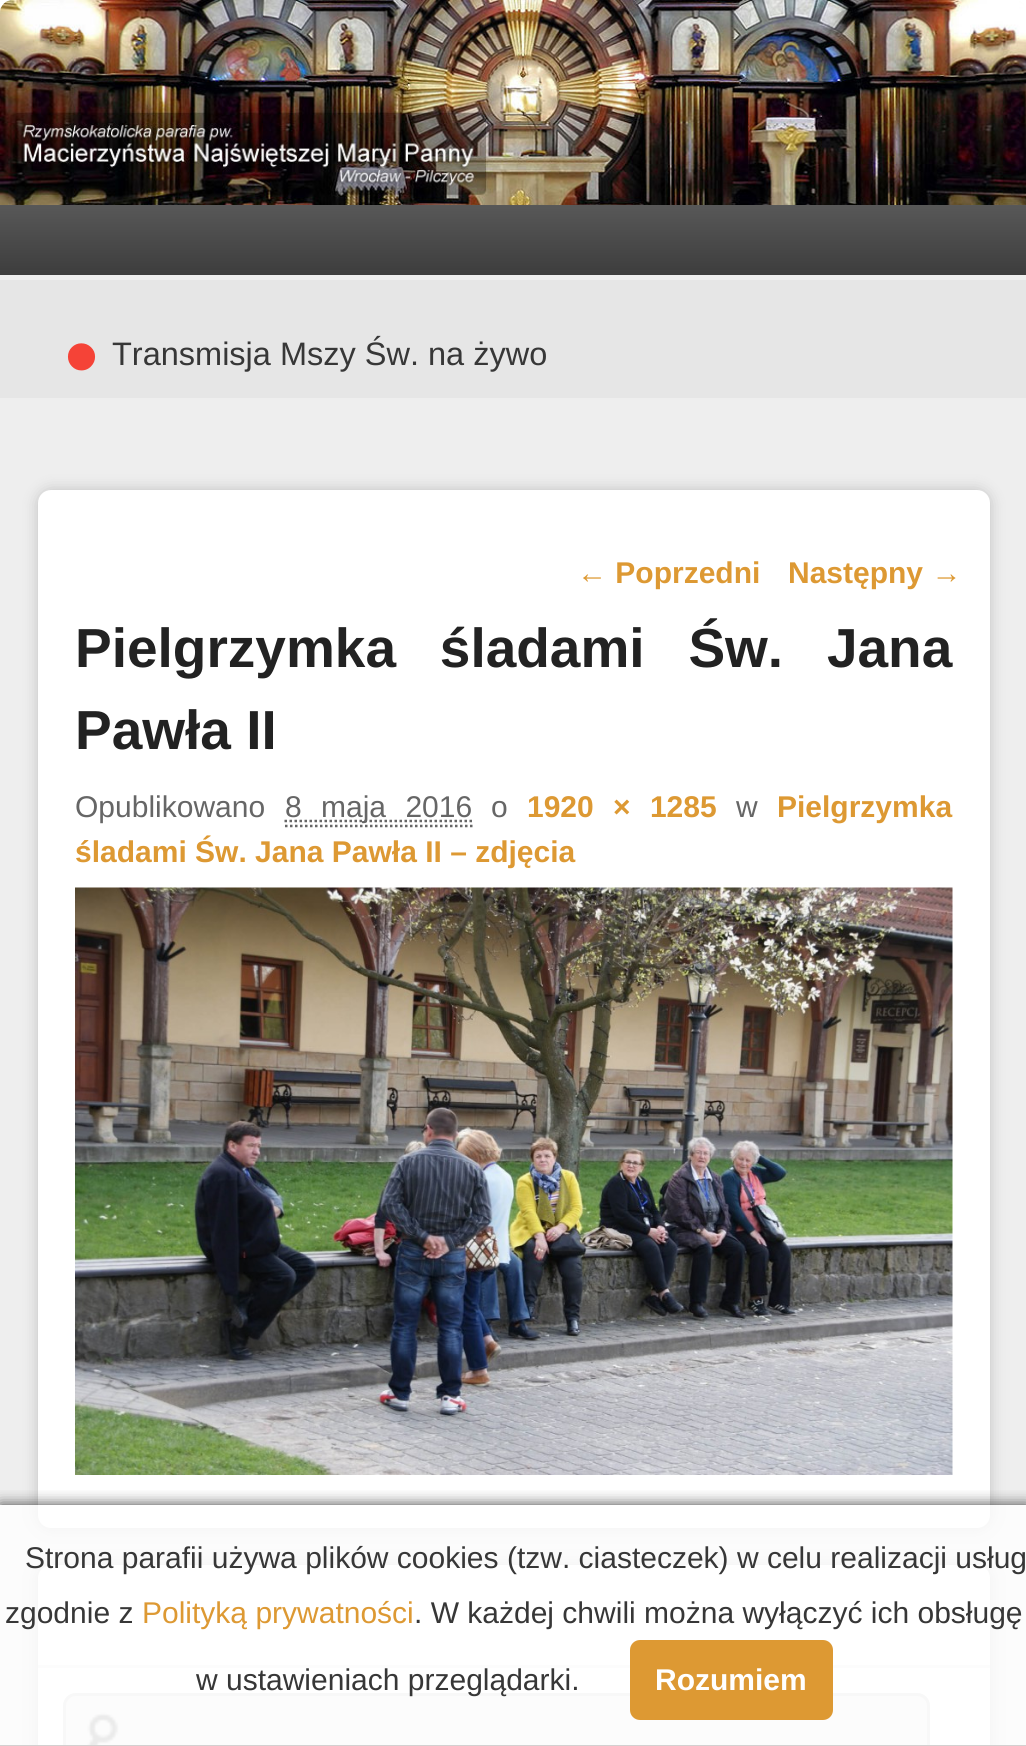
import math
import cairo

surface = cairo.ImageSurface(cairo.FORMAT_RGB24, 1026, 1746)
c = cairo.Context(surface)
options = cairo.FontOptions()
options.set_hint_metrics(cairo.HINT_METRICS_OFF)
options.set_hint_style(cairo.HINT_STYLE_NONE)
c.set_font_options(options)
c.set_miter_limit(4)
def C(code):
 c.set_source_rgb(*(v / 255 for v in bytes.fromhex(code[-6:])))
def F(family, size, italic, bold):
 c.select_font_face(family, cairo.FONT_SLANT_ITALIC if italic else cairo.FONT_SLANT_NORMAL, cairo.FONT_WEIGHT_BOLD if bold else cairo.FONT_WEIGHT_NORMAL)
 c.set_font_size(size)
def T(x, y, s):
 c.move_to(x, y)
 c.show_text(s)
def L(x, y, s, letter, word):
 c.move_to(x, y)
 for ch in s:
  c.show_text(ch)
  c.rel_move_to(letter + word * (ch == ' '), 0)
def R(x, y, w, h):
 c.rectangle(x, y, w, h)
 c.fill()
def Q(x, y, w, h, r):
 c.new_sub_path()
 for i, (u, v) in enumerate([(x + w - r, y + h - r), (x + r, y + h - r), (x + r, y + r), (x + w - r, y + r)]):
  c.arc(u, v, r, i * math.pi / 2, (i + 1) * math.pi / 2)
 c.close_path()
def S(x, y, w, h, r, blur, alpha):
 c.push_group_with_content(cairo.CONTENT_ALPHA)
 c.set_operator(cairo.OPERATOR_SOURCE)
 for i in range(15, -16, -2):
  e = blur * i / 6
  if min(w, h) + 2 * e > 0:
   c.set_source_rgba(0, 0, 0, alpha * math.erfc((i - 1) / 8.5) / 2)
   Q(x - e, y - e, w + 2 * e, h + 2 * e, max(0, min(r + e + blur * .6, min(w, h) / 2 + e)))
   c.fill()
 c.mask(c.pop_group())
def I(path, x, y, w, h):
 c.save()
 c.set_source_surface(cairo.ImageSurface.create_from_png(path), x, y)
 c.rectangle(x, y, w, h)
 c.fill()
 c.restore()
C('eeeeee')
c.paint()
C('ffffff')
R(0,0,1026,13)
I('1.png',0,0,1026,205)
gradient = cairo.LinearGradient(514,205,514,275)
gradient.add_color_stop_rgba(0,0.345,0.345,0.345,1)
gradient.add_color_stop_rgba(1,0.239,0.239,0.239,1)
c.set_source(gradient)
R(0,205,1026,70)
C('e6e6e6')
R(0,280,1026,118)
F('Liberation Sans',100,0,0)
C('f54337')
T(64,390,'•')
F('Liberation Sans',32.5,0,0)
C('373737')
T(112,365,'Transmisja Mszy Św. na żywo')
C('000000')
S(38,490,952,1038,13,7.5,.2)
C('ffffff')
Q(38,490,952,1038,13)
c.fill()
F('Liberation Sans',30,0,1)
C('dd9933')
T(577,583,'← Poprzedni')
T(788,583,'Następny →')
F('Liberation Sans',55,0,1)
C('222222')
L(75,667,'Pielgrzymka śladami Św. Jana',0,28.5)
T(75,749,'Pawła II')
F('Liberation Sans',30,0,0)
C('666666')
T(75,817,'Opublikowano')
c.new_path()
c.move_to(284.5,821)
c.line_to(472,821)
c.set_line_width(2.5)
c.set_dash([2.5,2.5])
c.stroke()
L(285,817,'8 maja 2016',0,11)
c.new_path()
c.move_to(285,826)
c.line_to(472.5,826)
c.stroke()
T(491,817,'o')
F('Liberation Sans',30,0,1)
C('dd9933')
L(527,817,'1920 × 1285',0,11)
F('Liberation Sans',30,0,0)
C('666666')
T(736,817,'w')
F('Liberation Sans',30,0,1)
C('dd9933')
T(777,817,'Pielgrzymka')
T(75,862,'śladami Św. Jana Pawła II – zdjęcia')
I('2.png',75,887,878,588)
C('000000')
S(38,1565,952,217,13,7.5,.2)
C('ffffff')
Q(38,1565,952,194,13)
c.fill()
C('eeeeee')
R(38,1665,952,3)
C('f0f0f0')
Q(63,1693,867,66,13)
c.fill()
I('3.png',87,1712,32,33)
Q(64.5,1694.5,864,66,11.5)
C('dddddd')
c.set_line_width(3)
c.set_dash([])
c.stroke()
c.save()
c.rectangle(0,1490,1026,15)
c.clip()
C('404040')
S(0,1505,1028,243,0,7.5,1)
c.restore()
c.set_source_rgba(1,1,1,0.8)
R(0,1505,1026,240)
C('d3d0d0')
R(0,1745,1026,1)
F('Liberation Sans',30,0,0)
C('373737')
T(25,1568,'Strona parafii używa plików cookies (tzw. ciasteczek) w celu realizacji usług')
T(5,1623,'zgodnie z')
C('dd9933')
T(142,1623,'Polityką prywatności')
C('373737')
T(414,1623,'. W każdej chwili można wyłączyć ich obsługę')
T(196,1690,'w ustawieniach przeglądarki.')
C('dd9933')
Q(630,1640,203,80,10)
c.fill()
F('Liberation Sans',30,0,1)
C('ffffff')
T(655,1690,'Rozumiem')
surface.write_to_png('o.png')
